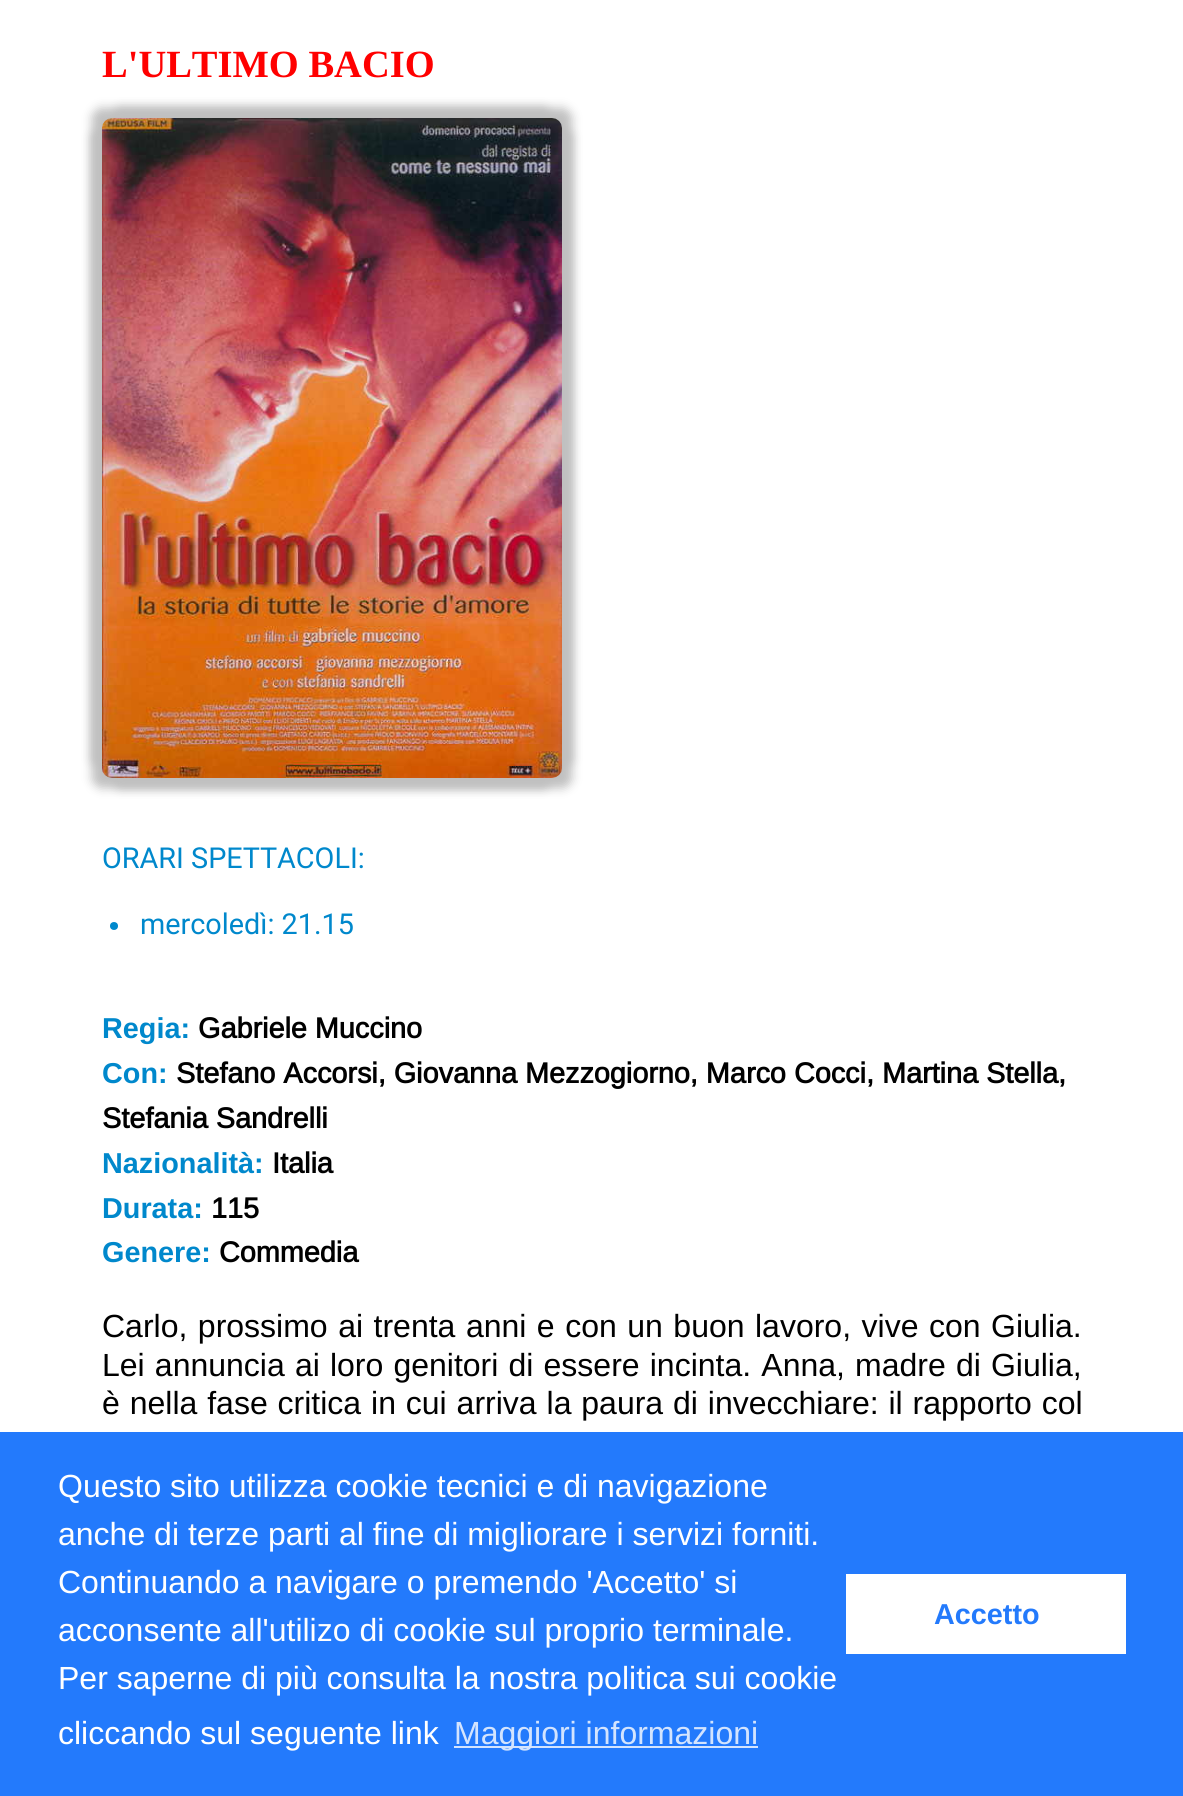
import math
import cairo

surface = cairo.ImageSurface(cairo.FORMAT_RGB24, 1183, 1796)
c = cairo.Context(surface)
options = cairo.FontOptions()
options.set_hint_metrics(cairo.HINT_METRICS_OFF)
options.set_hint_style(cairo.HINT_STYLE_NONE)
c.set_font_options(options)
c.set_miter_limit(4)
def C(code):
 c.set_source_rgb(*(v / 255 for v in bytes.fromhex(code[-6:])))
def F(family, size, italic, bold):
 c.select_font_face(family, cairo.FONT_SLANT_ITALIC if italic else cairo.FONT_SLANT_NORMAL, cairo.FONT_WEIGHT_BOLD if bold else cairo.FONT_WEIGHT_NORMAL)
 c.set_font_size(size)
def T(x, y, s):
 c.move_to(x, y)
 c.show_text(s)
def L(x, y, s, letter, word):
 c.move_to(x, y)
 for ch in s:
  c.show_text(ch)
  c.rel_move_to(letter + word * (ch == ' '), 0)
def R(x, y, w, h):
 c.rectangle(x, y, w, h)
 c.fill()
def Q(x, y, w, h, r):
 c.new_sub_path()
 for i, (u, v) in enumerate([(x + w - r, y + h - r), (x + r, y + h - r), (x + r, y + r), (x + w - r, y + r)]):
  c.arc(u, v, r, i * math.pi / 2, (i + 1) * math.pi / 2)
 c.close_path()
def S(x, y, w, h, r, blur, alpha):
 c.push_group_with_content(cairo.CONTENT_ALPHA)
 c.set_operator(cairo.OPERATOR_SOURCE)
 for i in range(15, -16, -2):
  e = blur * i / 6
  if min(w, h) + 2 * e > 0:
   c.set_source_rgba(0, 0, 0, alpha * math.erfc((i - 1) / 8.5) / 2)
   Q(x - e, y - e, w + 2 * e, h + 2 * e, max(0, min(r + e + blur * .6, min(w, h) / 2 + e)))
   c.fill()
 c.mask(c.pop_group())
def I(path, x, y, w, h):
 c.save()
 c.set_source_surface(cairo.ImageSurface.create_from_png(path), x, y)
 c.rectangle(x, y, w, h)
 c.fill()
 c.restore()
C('ffffff')
c.paint()
F('Liberation Serif',38.5,0,1)
C('ff0000')
T(102,77,'L\'ULTIMO BACIO')
C('c0c0c0')
S(92,108,460,660,10,5,1)
S(112,108,460,660,10,5,1)
S(92,128,460,660,10,5,1)
S(112,128,460,660,10,5,1)
I('1.png',102,118,460,660)
F('Roboto',28.8,0,0)
C('0088cc')
T(102,868,'ORARI SPETTACOLI:')
c.new_path()
c.arc(114,926,4,0,2 * math.pi)
c.fill()
T(140,934,'mercoledì: 21.15')
F('Liberation Sans',28.8,0,1)
T(102,1038,'Regia:')
F('Arimo',28.8,0,1)
C('000000')
T(198,1038,'Gabriele Muccino')
F('Liberation Sans',28.8,0,1)
C('0088cc')
T(102,1083,'Con:')
F('Arimo',28.8,0,1)
C('000000')
T(176,1083,'Stefano Accorsi, Giovanna Mezzogiorno, Marco Cocci, Martina Stella,')
T(102,1128,'Stefania Sandrelli')
F('Liberation Sans',28.8,0,1)
C('0088cc')
T(102,1173,'Nazionalità:')
F('Arimo',28.8,0,1)
C('000000')
T(272,1173,'Italia')
F('Liberation Sans',28.8,0,1)
C('0088cc')
T(102,1218,'Durata:')
F('Arimo',28.8,0,1)
C('000000')
T(211,1218,'115')
F('Liberation Sans',28.8,0,1)
C('0088cc')
T(102,1262,'Genere:')
F('Arimo',28.8,0,1)
C('000000')
T(219,1262,'Commedia')
F('Arimo',32,0,0)
L(102,1337,'Carlo, prossimo ai trenta anni e con un buon lavoro, vive con Giulia.',0,1.6)
L(102,1376,'Lei annuncia ai loro genitori di essere incinta. Anna, madre di Giulia,',0,1.25)
L(102,1414,'è nella fase critica in cui arriva la paura di invecchiare: il rapporto col',0,1)
C('237afc')
R(0,1432,1183,364)
F('Liberation Sans',32,0,0)
C('ffffff')
T(58,1497,'Questo sito utilizza cookie tecnici e di navigazione')
T(58,1545,'anche di terze parti al fine di migliorare i servizi forniti.')
T(58,1593,'Continuando a navigare o premendo \'Accetto\' si')
T(58,1641,'acconsente all\'utilizo di cookie sul proprio terminale.')
T(58,1689,'Per saperne di più consulta la nostra politica sui cookie')
T(58,1744,'cliccando sul seguente link')
C('d3e4fe')
R(454,1746,304,2)
T(454,1744,'Maggiori informazioni')
C('ffffff')
R(846,1574,280,80)
F('Liberation Sans',28.8,0,1)
C('237afc')
T(934,1624,'Accetto')
surface.write_to_png('o.png')
